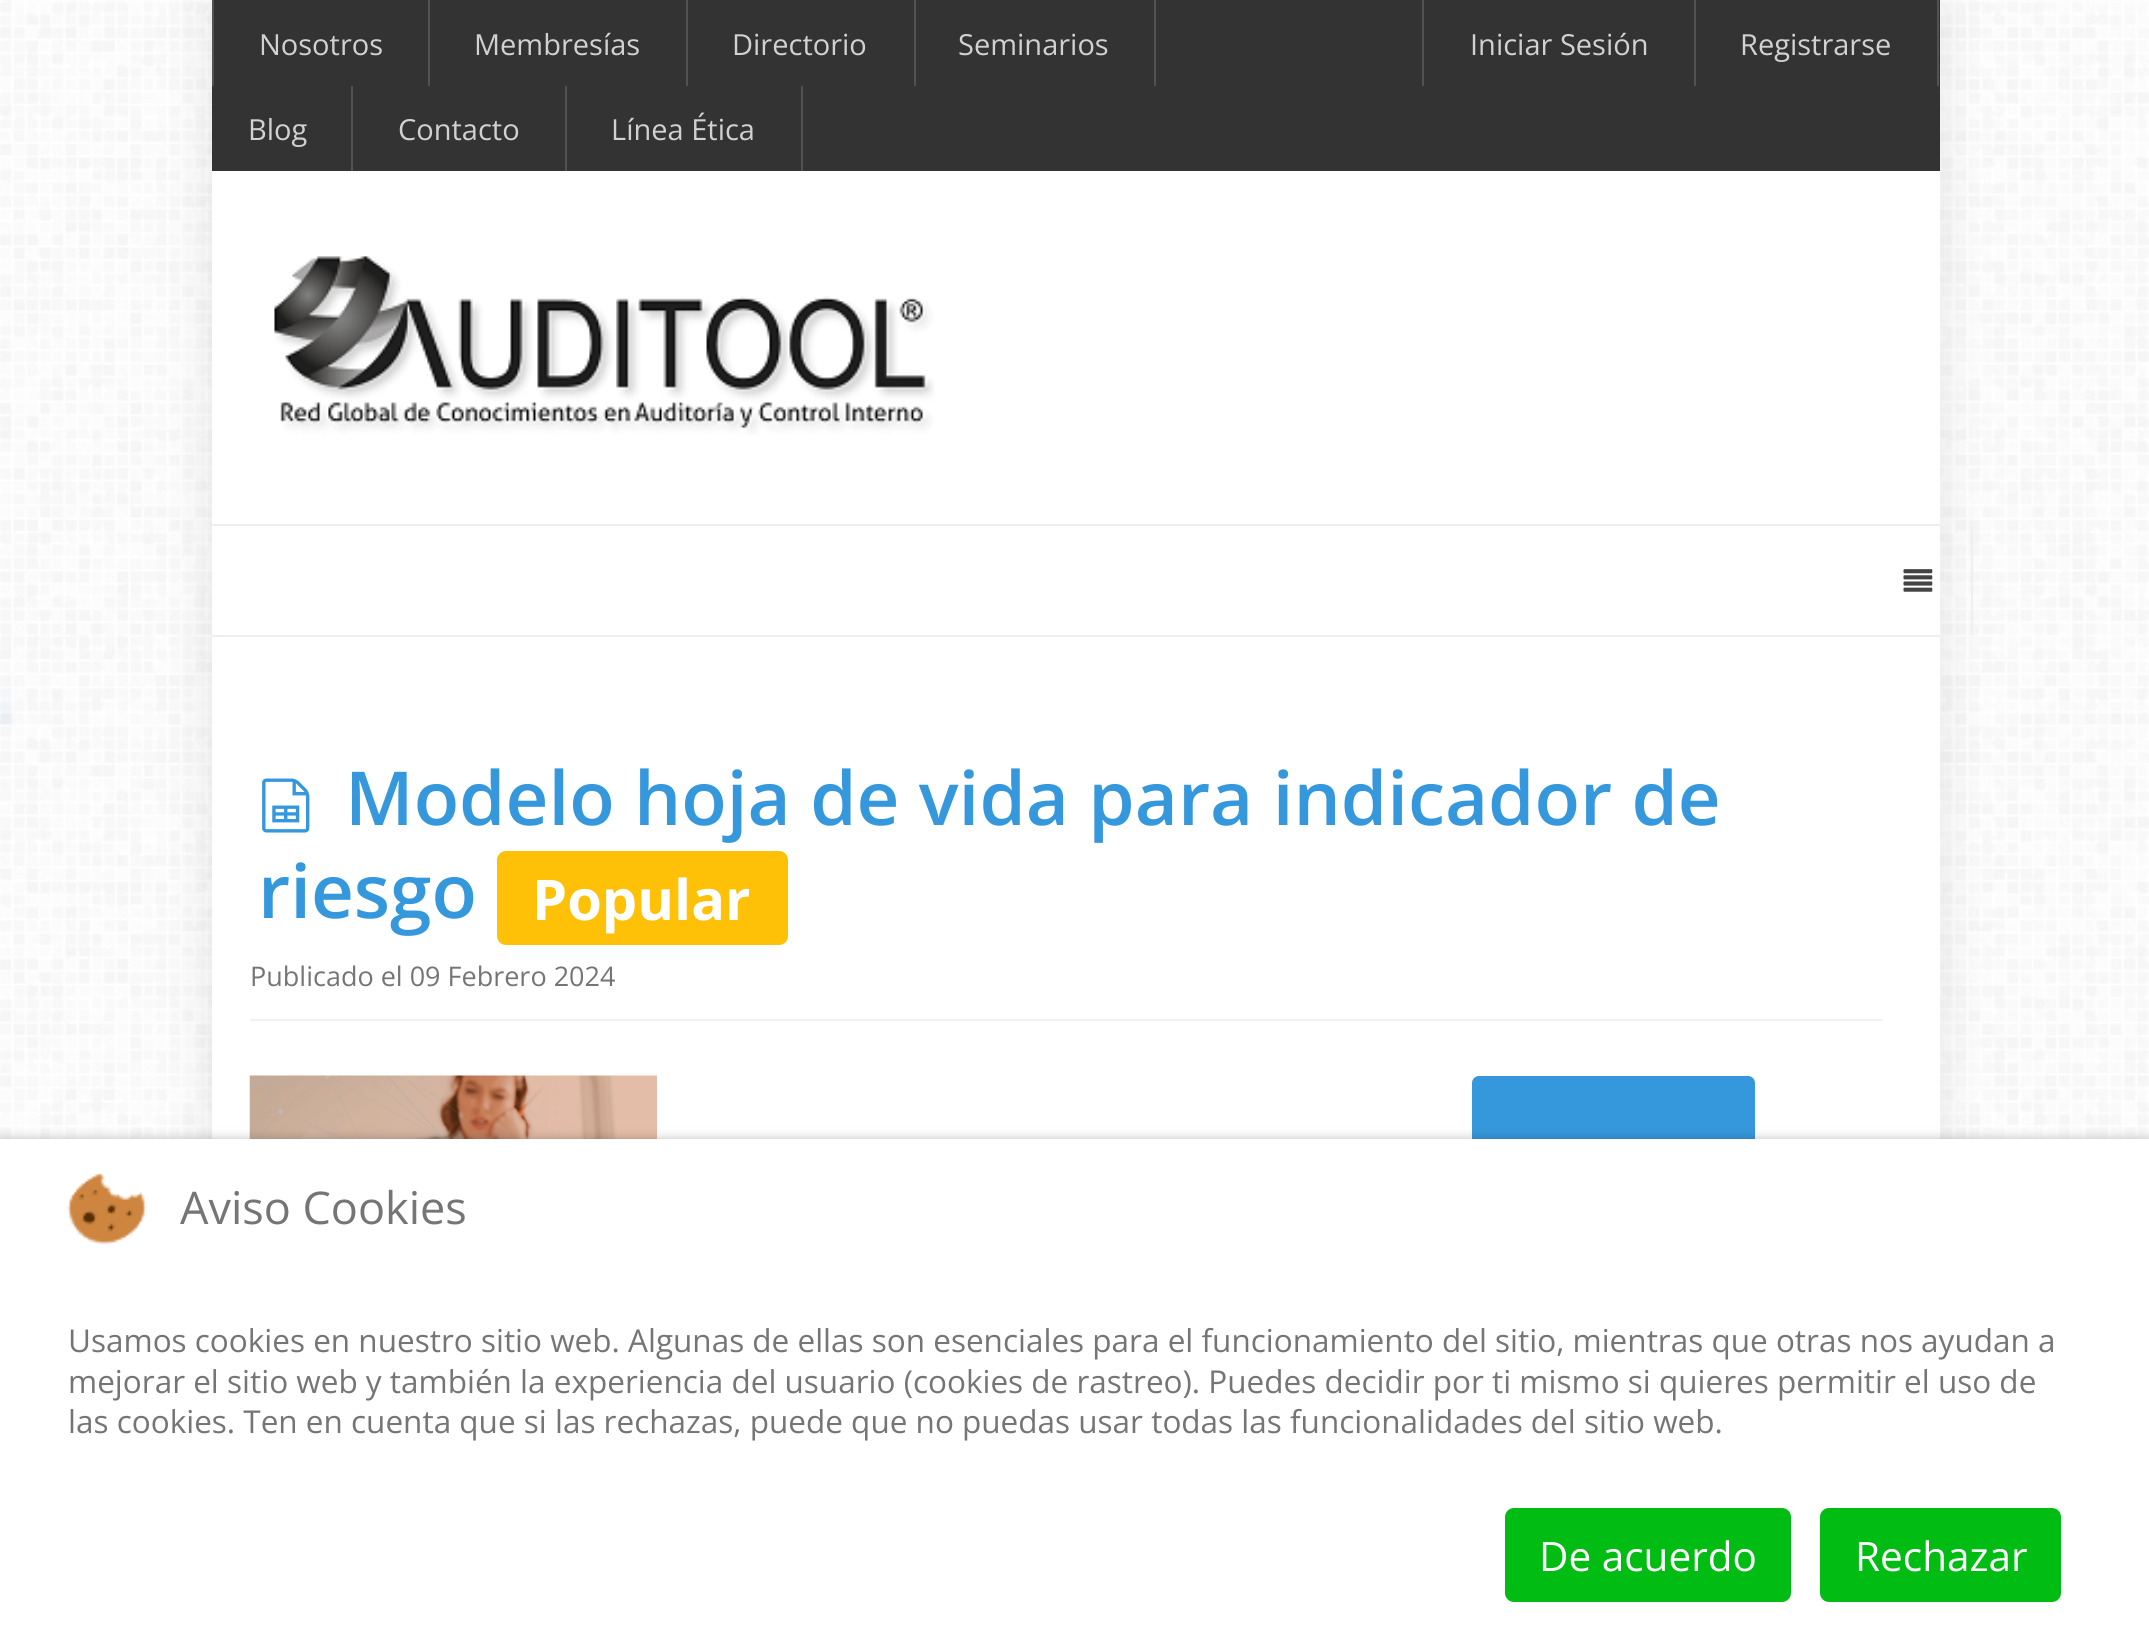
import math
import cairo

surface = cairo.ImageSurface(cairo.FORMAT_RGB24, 2149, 1635)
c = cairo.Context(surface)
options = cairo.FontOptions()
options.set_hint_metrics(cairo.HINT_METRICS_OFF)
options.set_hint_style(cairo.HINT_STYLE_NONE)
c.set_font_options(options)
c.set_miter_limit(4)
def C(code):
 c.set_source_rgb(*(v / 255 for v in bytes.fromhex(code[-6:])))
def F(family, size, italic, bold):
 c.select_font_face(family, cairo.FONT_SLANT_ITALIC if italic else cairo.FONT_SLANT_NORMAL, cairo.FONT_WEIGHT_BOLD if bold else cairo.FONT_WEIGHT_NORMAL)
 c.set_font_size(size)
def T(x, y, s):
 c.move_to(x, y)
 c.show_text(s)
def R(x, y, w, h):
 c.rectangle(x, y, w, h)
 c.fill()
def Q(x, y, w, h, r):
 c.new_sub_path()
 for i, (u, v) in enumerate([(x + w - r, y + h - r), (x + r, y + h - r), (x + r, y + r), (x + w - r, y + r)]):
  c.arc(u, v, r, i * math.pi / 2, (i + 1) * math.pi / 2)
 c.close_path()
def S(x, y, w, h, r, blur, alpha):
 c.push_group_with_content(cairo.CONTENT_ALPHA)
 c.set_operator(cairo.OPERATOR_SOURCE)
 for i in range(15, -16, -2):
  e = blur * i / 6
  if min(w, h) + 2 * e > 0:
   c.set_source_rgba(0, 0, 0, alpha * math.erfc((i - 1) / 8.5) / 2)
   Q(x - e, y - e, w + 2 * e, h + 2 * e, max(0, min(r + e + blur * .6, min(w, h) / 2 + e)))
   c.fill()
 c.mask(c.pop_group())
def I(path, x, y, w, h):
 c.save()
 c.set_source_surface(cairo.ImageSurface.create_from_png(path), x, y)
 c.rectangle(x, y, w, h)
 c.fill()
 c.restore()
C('ffffff')
c.paint()
I('1.png',0,0,2149,1139)
C('000000')
S(212,7,1728,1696,0,22.5,.1)
C('333333')
R(212,0,1728,171)
C('525252')
R(428,0,2,86)
R(212,0,2,86)
F('Open Sans',29,0,0)
C('d1d1d1')
T(259,55,'Nosotros')
C('525252')
R(686,0,2,86)
C('d1d1d1')
T(474,55,'Membresías')
C('525252')
R(914,0,2,86)
C('d1d1d1')
T(732,55,'Directorio')
C('525252')
R(1154,0,2,86)
C('d1d1d1')
T(958,55,'Seminarios')
C('525252')
R(351,86,2,85)
C('d1d1d1')
T(248,140,'Blog')
C('525252')
R(565,86,2,85)
C('d1d1d1')
T(398,140,'Contacto')
C('525252')
R(801,86,2,85)
C('d1d1d1')
T(611,140,'Línea Ética')
C('525252')
R(1694,0,2,86)
R(1422,0,2,86)
C('d1d1d1')
T(1470,55,'Iniciar Sesión')
C('525252')
R(1937,0,2,86)
C('d1d1d1')
T(1740,55,'Registrarse')
C('ffffff')
R(212,171,1728,353)
I('2.png',274,256,661,179)
R(212,526,1728,109)
C('efefef')
R(212,524,1728,2)
R(221,635,1719,2)
R(1971,527,2,108)
I('3.png',1903,569,30,23)
C('ffffff')
R(212,637,1728,502)
I('4.png',262,778,48,55)
F('Open Sans SemiBold',74.5,0,0)
C('3598dc')
T(345,825,'Modelo hoja de vida para indicador de')
T(258,918,'riesgo')
C('ffc107')
Q(497,851,291,94,9)
c.fill()
F('Open Sans',56,0,1)
C('ffffff')
T(532,920,'Popular')
C('f2f2f2')
R(250,1019,1633,2)
F('Open Sans',27,0,0)
C('757575')
T(250,986,'Publicado el 09 Febrero 2024')
I('5.png',249,1075,408,64)
C('3598dc')
Q(1472,1076,283,168,7)
c.fill()
C('000000')
S(0,1139,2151,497,0,5.5,.25)
C('ffffff')
R(0,1139,2149,496)
I('6.png',67,1172,80,73)
F('Open Sans',45,0,0)
C('757575')
T(180,1224,'Aviso Cookies')
F('Open Sans',31.5,0,0)
T(68,1352,'Usamos cookies en nuestro sitio web. Algunas de ellas son esenciales para el funcionamiento del sitio, mientras que otras nos ayudan a')
T(68,1393,'mejorar el sitio web y también la experiencia del usuario (cookies de rastreo). Puedes decidir por ti mismo si quieres permitir el uso de')
T(68,1433,'las cookies. Ten en cuenta que si las rechazas, puede que no puedas usar todas las funcionalidades del sitio web.')
C('00bc13')
Q(1505,1508,286,94,9)
c.fill()
F('Open Sans',40.5,0,0)
C('ffffff')
T(1539,1571,'De acuerdo')
C('00bc13')
Q(1820,1508,241,94,9)
c.fill()
C('ffffff')
T(1855,1571,'Rechazar')
surface.write_to_png('o.png')
